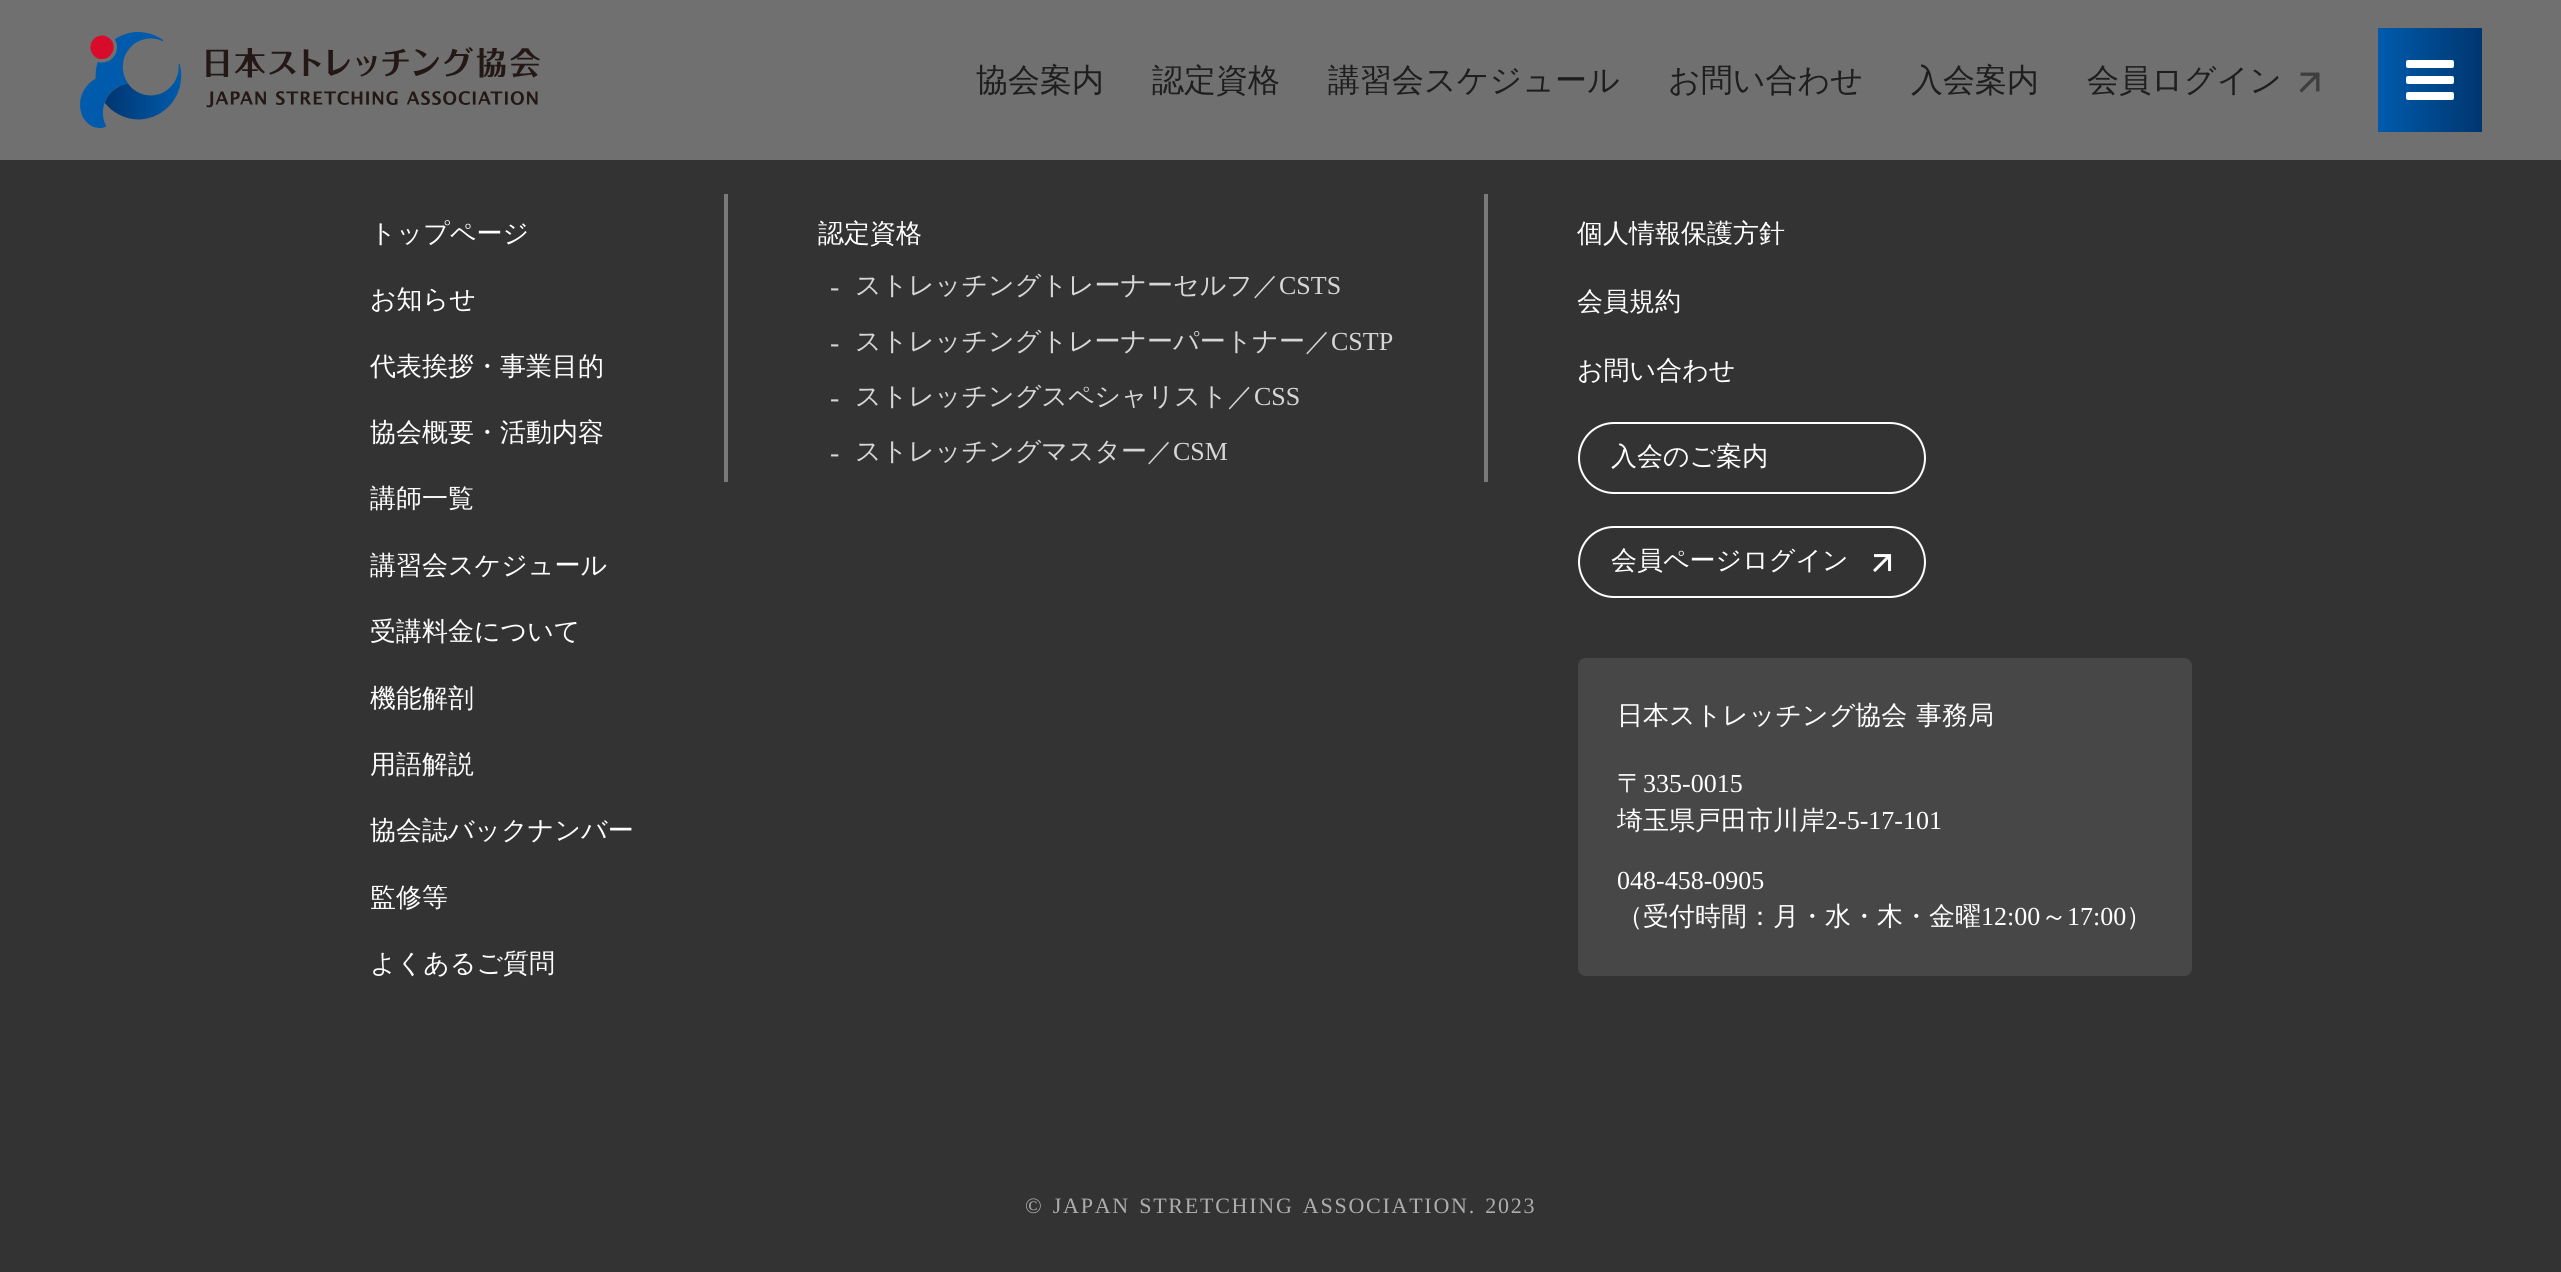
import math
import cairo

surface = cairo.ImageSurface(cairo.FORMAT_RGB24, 2561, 1272)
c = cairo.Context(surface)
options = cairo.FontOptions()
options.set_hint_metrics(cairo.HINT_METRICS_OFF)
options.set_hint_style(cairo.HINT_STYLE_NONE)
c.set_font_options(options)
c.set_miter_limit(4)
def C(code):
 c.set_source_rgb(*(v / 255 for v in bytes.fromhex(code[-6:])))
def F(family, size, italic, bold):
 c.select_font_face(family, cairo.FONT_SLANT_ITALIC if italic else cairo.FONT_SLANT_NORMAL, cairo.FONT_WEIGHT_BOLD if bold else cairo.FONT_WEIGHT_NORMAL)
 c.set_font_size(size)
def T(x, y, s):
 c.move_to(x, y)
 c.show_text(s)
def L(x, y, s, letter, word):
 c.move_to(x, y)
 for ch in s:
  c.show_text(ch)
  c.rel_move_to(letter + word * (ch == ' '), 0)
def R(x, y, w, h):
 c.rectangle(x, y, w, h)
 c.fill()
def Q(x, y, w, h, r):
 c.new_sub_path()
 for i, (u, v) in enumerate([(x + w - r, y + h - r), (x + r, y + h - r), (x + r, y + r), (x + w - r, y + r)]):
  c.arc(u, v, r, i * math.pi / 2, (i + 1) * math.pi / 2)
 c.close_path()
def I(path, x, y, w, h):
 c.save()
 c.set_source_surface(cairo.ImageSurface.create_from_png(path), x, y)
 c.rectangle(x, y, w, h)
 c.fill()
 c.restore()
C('333333')
c.paint()
C('707070')
R(0,0,2561,160)
I('1.png',80,32,460,96)
F('WenQuanYi Zen Hei Medium',32,0,0)
C('1e1e1e')
T(976,91,'協会案内')
T(1152,91,'認定資格')
T(1328,91,'講習会スケジュール')
T(1668,91,'お問い合わせ')
T(1911,91,'入会案内')
T(2087,91,'会員ログイン')
I('2.png',2299,72,21,21)
gradient = cairo.LinearGradient(2378,80,2482,80)
gradient.add_color_stop_rgba(0,0,0.357,0.675,1)
gradient.add_color_stop_rgba(1,0,0.212,0.439,1)
c.set_source(gradient)
R(2378,28,104,104)
I('3.png',2406,60,48,40)
F('WenQuanYi Zen Hei Medium',26,0,0)
C('ffffff')
T(370,242,'トップページ')
T(370,308,'お知らせ')
T(370,375,'代表挨拶・事業目的')
T(370,441,'協会概要・活動内容')
T(370,507,'講師一覧')
T(370,574,'講習会スケジュール')
T(370,640,'受講料金について')
T(370,707,'機能解剖')
T(370,773,'用語解説')
T(370,839,'協会誌バックナンバー')
T(370,906,'監修等')
T(370,972,'よくあるご質問')
C('7a7a7a')
R(1484,194,4,288)
R(724,194,4,288)
C('ffffff')
T(818,242,'認定資格')
F('Liberation Serif',28,0,0)
C('d6d6d6')
T(830,296,'-')
F('WenQuanYi Zen Hei Medium',26,0,0)
T(855,294,'ストレッチングトレーナーセルフ／')
F('Liberation Serif',26,0,0)
T(1279,294,'CSTS')
F('Liberation Serif',28,0,0)
T(830,352,'-')
F('WenQuanYi Zen Hei Medium',26,0,0)
T(855,350,'ストレッチングトレーナーパートナー／')
F('Liberation Serif',26,0,0)
T(1331,350,'CSTP')
F('Liberation Serif',28,0,0)
T(830,407,'-')
F('WenQuanYi Zen Hei Medium',26,0,0)
T(855,405,'ストレッチングスペシャリスト／')
F('Liberation Serif',26,0,0)
T(1254,405,'CSS')
F('Liberation Serif',28,0,0)
T(830,462,'-')
F('WenQuanYi Zen Hei Medium',26,0,0)
T(855,460,'ストレッチングマスター／')
F('Liberation Serif',26,0,0)
T(1173,460,'CSM')
F('WenQuanYi Zen Hei Medium',26,0,0)
C('ffffff')
T(1577,242,'個人情報保護方針')
T(1577,310,'会員規約')
T(1577,379,'お問い合わせ')
Q(1579,423,346,70,35)
c.stroke()
T(1611,465,'入会のご案内')
Q(1579,527,346,70,35)
c.stroke()
T(1611,569,'会員ページログイン')
I('4.png',1873,554,19,18)
C('474747')
Q(1578,658,614,318,8)
c.fill()
C('ffffff')
L(1617,724,'日本ストレッチング協会 事務局',0,1)
T(1617,792,'〒')
F('Liberation Serif',26,0,0)
T(1643,792,'335-0015')
F('WenQuanYi Zen Hei Medium',26,0,0)
T(1617,829,'埼玉県戸田市川岸')
F('Liberation Serif',26,0,0)
T(1825,829,'2-5-17-101')
T(1617,889,'048-458-0905')
F('WenQuanYi Zen Hei Medium',26,0,0)
T(1617,925,'（受付時間：月・水・木・金曜')
F('Liberation Serif',26,0,0)
T(1981,925,'12:00')
F('WenQuanYi Zen Hei Medium',26,0,0)
T(2041,925,'～')
F('Liberation Serif',26,0,0)
T(2067,925,'17:00')
F('WenQuanYi Zen Hei Medium',26,0,0)
T(2126,925,'）')
F('Liberation Serif',22,0,0)
C('adadad')
L(1025,1213,'© JAPAN STRETCHING ASSOCIATION. 2023',1.75,2)
surface.write_to_png('o.png')
